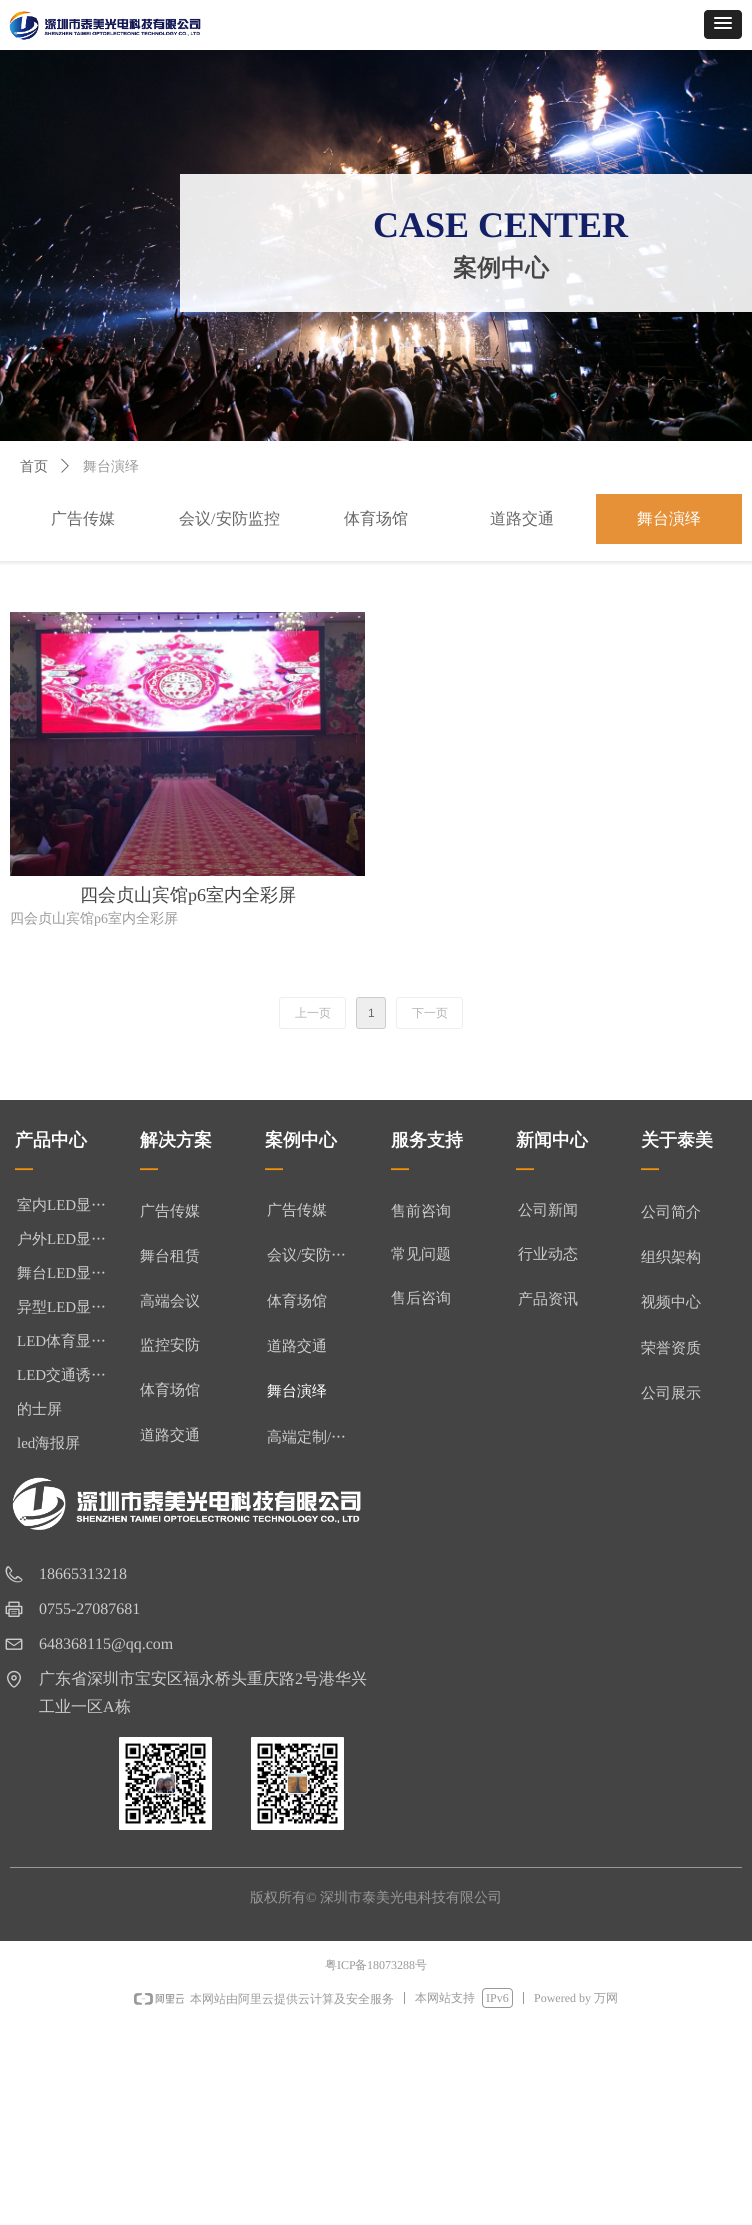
import math
import cairo

surface = cairo.ImageSurface(cairo.FORMAT_RGB24, 752, 2225)
c = cairo.Context(surface)
options = cairo.FontOptions()
options.set_hint_metrics(cairo.HINT_METRICS_OFF)
options.set_hint_style(cairo.HINT_STYLE_NONE)
c.set_font_options(options)
c.set_miter_limit(4)
def C(code):
 c.set_source_rgb(*(v / 255 for v in bytes.fromhex(code[-6:])))
def F(family, size, italic, bold):
 c.select_font_face(family, cairo.FONT_SLANT_ITALIC if italic else cairo.FONT_SLANT_NORMAL, cairo.FONT_WEIGHT_BOLD if bold else cairo.FONT_WEIGHT_NORMAL)
 c.set_font_size(size)
def T(x, y, s):
 c.move_to(x, y)
 c.show_text(s)
def R(x, y, w, h):
 c.rectangle(x, y, w, h)
 c.fill()
def Q(x, y, w, h, r):
 c.new_sub_path()
 for i, (u, v) in enumerate([(x + w - r, y + h - r), (x + r, y + h - r), (x + r, y + r), (x + w - r, y + r)]):
  c.arc(u, v, r, i * math.pi / 2, (i + 1) * math.pi / 2)
 c.close_path()
def S(x, y, w, h, r, blur, alpha):
 c.push_group_with_content(cairo.CONTENT_ALPHA)
 c.set_operator(cairo.OPERATOR_SOURCE)
 for i in range(15, -16, -2):
  e = blur * i / 6
  if min(w, h) + 2 * e > 0:
   c.set_source_rgba(0, 0, 0, alpha * math.erfc((i - 1) / 8.5) / 2)
   Q(x - e, y - e, w + 2 * e, h + 2 * e, max(0, min(r + e + blur * .6, min(w, h) / 2 + e)))
   c.fill()
 c.mask(c.pop_group())
def I(path, x, y, w, h):
 c.save()
 c.set_source_surface(cairo.ImageSurface.create_from_png(path), x, y)
 c.rectangle(x, y, w, h)
 c.fill()
 c.restore()
C('ffffff')
c.paint()
I('1.png',9,11,192,29)
C('222222')
Q(704,10,38,29,4)
c.fill()
C('1a1a1a')
c.new_path()
c.move_to(714,18.5)
c.curve_to(713,20.5,717.5,20,717.5,20)
c.line_to(728.5,20)
c.curve_to(728.5,20,733,20.5,732,18.5)
c.curve_to(731,19.5,724.5,19,723,19)
c.curve_to(721.5,19,715,19.5,714,18.5)
c.close_path()
c.fill()
C('ffffff')
Q(714,17,18,2,1)
c.fill()
C('1a1a1a')
c.new_path()
c.move_to(714,23.5)
c.curve_to(713,25.5,717.5,25,717.5,25)
c.line_to(728.5,25)
c.curve_to(728.5,25,733,25.5,732,23.5)
c.curve_to(731,24.5,724.5,24,723,24)
c.curve_to(721.5,24,715,24.5,714,23.5)
c.close_path()
c.fill()
C('ffffff')
Q(714,22,18,2,1)
c.fill()
C('1a1a1a')
c.new_path()
c.move_to(714,28.5)
c.curve_to(713,30.5,717.5,30,717.5,30)
c.line_to(728.5,30)
c.curve_to(728.5,30,733,30.5,732,28.5)
c.curve_to(731,29.5,724.5,29,723,29)
c.curve_to(721.5,29,715,29.5,714,28.5)
c.close_path()
c.fill()
C('ffffff')
Q(714,27,18,2,1)
c.fill()
c.save()
c.rectangle(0,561,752,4)
c.clip()
C('000000')
S(0,443,752,120,0,2.5,.1)
c.restore()
I('2.png',0,50,752,391)
c.set_source_rgba(1,1,1,0.9)
R(180,174,572,138)
F('Liberation Serif',36,0,1)
C('132066')
T(373,237,'CASE CENTER')
c.save()
c.rectangle(190,206,562,73)
c.clip()
F('WenQuanYi Zen Hei',24,0,1)
C('444444')
T(453,276,'案例中心')
c.restore()
F('WenQuanYi Zen Hei Medium',14,0,0)
C('666666')
T(20,471,'首页')
I('3.png',61,458,8,15)
C('999999')
T(83,471,'舞台演绎')
F('WenQuanYi Zen Hei Medium',16,0,0)
C('666666')
T(51,524,'广告传媒')
T(179,524,'会议')
F('Liberation Serif',16,0,0)
T(211,524,'/')
F('WenQuanYi Zen Hei Medium',16,0,0)
T(216,524,'安防监控')
T(344,524,'体育场馆')
T(490,524,'道路交通')
C('e69138')
R(596,494,146,50)
C('ffffff')
T(637,524,'舞台演绎')
I('4.png',10,612,355,264)
F('WenQuanYi Zen Hei Medium',18,0,0)
C('444444')
T(80,901,'四会贞山宾馆')
F('Liberation Serif',18,0,0)
T(188,901,'p6')
F('WenQuanYi Zen Hei Medium',18,0,0)
T(206,901,'室内全彩屏')
F('WenQuanYi Zen Hei Medium',14,0,0)
C('999999')
T(10,923,'四会贞山宾馆')
F('Liberation Serif',14,0,0)
T(94,923,'p6')
F('WenQuanYi Zen Hei Medium',14,0,0)
T(108,923,'室内全彩屏')
Q(279.5,997.5,66,31,2.5)
C('eeeeee')
c.set_line_width(1)
c.stroke()
F('WenQuanYi Zen Hei Medium',12,0,0)
C('b3b3b3')
T(295,1017,'上一页')
C('eeeeee')
Q(356.5,997.5,29,31,2.5)
c.fill_preserve()
C('cccccc')
c.stroke()
F('Liberation Sans',12,0,0)
C('666666')
T(368,1017,'1')
Q(396.5,997.5,66,31,2.5)
C('eeeeee')
c.stroke()
F('WenQuanYi Zen Hei Medium',12,0,0)
C('b3b3b3')
T(412,1017,'下一页')
C('444444')
R(0,1100,752,841)
F('WenQuanYi Zen Hei',18,0,1)
C('ffffff')
T(15,1146,'产品中心')
F('Liberation Sans',18,0,1)
C('f2910a')
T(15,1174,'—')
F('WenQuanYi Zen Hei Medium',15,0,0)
C('cccccc')
T(17,1210,'室内')
F('Liberation Serif',15,0,0)
T(47,1210,'LED')
F('WenQuanYi Zen Hei Medium',15,0,0)
T(76,1210,'显…')
T(17,1244,'户外')
F('Liberation Serif',15,0,0)
T(47,1244,'LED')
F('WenQuanYi Zen Hei Medium',15,0,0)
T(76,1244,'显…')
T(17,1278,'舞台')
F('Liberation Serif',15,0,0)
T(47,1278,'LED')
F('WenQuanYi Zen Hei Medium',15,0,0)
T(76,1278,'显…')
T(17,1312,'异型')
F('Liberation Serif',15,0,0)
T(47,1312,'LED')
F('WenQuanYi Zen Hei Medium',15,0,0)
T(76,1312,'显…')
F('Liberation Serif',15,0,0)
T(17,1346,'LED')
F('WenQuanYi Zen Hei Medium',15,0,0)
T(46,1346,'体育显…')
F('Liberation Serif',15,0,0)
T(17,1380,'LED')
F('WenQuanYi Zen Hei Medium',15,0,0)
T(46,1380,'交通诱…')
T(17,1414,'的士屏')
F('Liberation Serif',15,0,0)
T(17,1448,'led')
F('WenQuanYi Zen Hei Medium',15,0,0)
T(35,1448,'海报屏')
F('WenQuanYi Zen Hei',18,0,1)
C('ffffff')
T(140,1146,'解决方案')
F('Liberation Sans',18,0,1)
C('f2910a')
T(140,1174,'—')
F('WenQuanYi Zen Hei Medium',15,0,0)
C('cccccc')
T(140,1216,'广告传媒')
T(140,1261,'舞台租赁')
T(140,1306,'高端会议')
T(140,1350,'监控安防')
T(140,1395,'体育场馆')
T(140,1440,'道路交通')
F('WenQuanYi Zen Hei',18,0,1)
C('ffffff')
T(265,1146,'案例中心')
F('Liberation Sans',18,0,1)
C('f2910a')
T(265,1174,'—')
F('WenQuanYi Zen Hei Medium',15,0,0)
C('cccccc')
T(267,1215,'广告传媒')
T(267,1260,'会议')
F('Liberation Serif',15,0,0)
T(297,1260,'/')
F('WenQuanYi Zen Hei Medium',15,0,0)
T(301,1260,'安防…')
T(267,1306,'体育场馆')
T(267,1351,'道路交通')
C('ffffff')
T(267,1396,'舞台演绎')
C('cccccc')
T(267,1442,'高端定制')
F('Liberation Serif',15,0,0)
T(327,1442,'/')
F('WenQuanYi Zen Hei Medium',15,0,0)
T(331,1442,'…')
F('WenQuanYi Zen Hei',18,0,1)
C('ffffff')
T(391,1146,'服务支持')
F('Liberation Sans',18,0,1)
C('f2910a')
T(391,1174,'—')
F('WenQuanYi Zen Hei Medium',15,0,0)
C('cccccc')
T(391,1216,'售前咨询')
T(391,1259,'常见问题')
T(391,1303,'售后咨询')
F('WenQuanYi Zen Hei',18,0,1)
C('ffffff')
T(516,1146,'新闻中心')
F('Liberation Sans',18,0,1)
C('f2910a')
T(516,1174,'—')
F('WenQuanYi Zen Hei Medium',15,0,0)
C('cccccc')
T(518,1215,'公司新闻')
T(518,1259,'行业动态')
T(518,1304,'产品资讯')
F('WenQuanYi Zen Hei',18,0,1)
C('ffffff')
T(641,1146,'关于泰美')
F('Liberation Sans',18,0,1)
C('f2910a')
T(641,1174,'—')
F('WenQuanYi Zen Hei Medium',15,0,0)
C('cccccc')
T(641,1217,'公司简介')
T(641,1262,'组织架构')
T(641,1307,'视频中心')
T(641,1353,'荣誉资质')
T(641,1398,'公司展示')
I('5.png',12,1477,349,53)
I('6.png',5,1566,18,17)
F('Liberation Serif',16,0,0)
T(39,1579,'18665313218')
I('7.png',5,1601,18,16)
T(39,1614,'0755-27087681')
I('8.png',5,1638,18,12)
T(39,1649,'648368115@qq.com')
I('9.png',7,1670,14,18)
F('WenQuanYi Zen Hei Medium',16,0,0)
T(39,1684,'广东省深圳市宝安区福永桥头重庆路')
F('Liberation Serif',16,0,0)
T(295,1684,'2')
F('WenQuanYi Zen Hei Medium',16,0,0)
T(303,1684,'号港华兴')
T(39,1712,'工业一区')
F('Liberation Serif',16,0,0)
T(103,1712,'A')
F('WenQuanYi Zen Hei Medium',16,0,0)
T(115,1712,'栋')
I('10.png',119,1737,93,93)
I('11.png',251,1737,93,93)
C('999999')
R(10,1867,732,1)
F('WenQuanYi Zen Hei Medium',14,0,0)
T(250,1902,'版权所有')
F('Liberation Serif',14,0,0)
T(306,1902,'©')
F('WenQuanYi Zen Hei Medium',14,0,0)
T(320,1902,'深圳市泰美光电科技有限公司')
F('WenQuanYi Zen Hei Medium',12,0,0)
T(325,1969,'粤')
F('Liberation Serif',12,0,0)
T(337,1969,'ICP')
F('WenQuanYi Zen Hei Medium',12,0,0)
T(355,1969,'备')
F('Liberation Serif',12,0,0)
T(367,1969,'18073288')
F('WenQuanYi Zen Hei Medium',12,0,0)
T(415,1969,'号')
I('12.png',134,1993,50,12)
T(190,2003,'本网站由阿里云提供云计算及安全服务')
C('989898')
R(404,1992,1,12)
C('999999')
T(415,2002,'本网站支持')
Q(482.5,1988.5,30,19,3.5)
C('989898')
c.stroke()
F('Liberation Serif',12,0,0)
C('999999')
T(486,2002,'IPv6')
C('989898')
R(523,1992,1,12)
C('999999')
T(534,2002,'Powered by')
F('WenQuanYi Zen Hei Medium',12,0,0)
T(594,2002,'万网')
surface.write_to_png('o.png')
